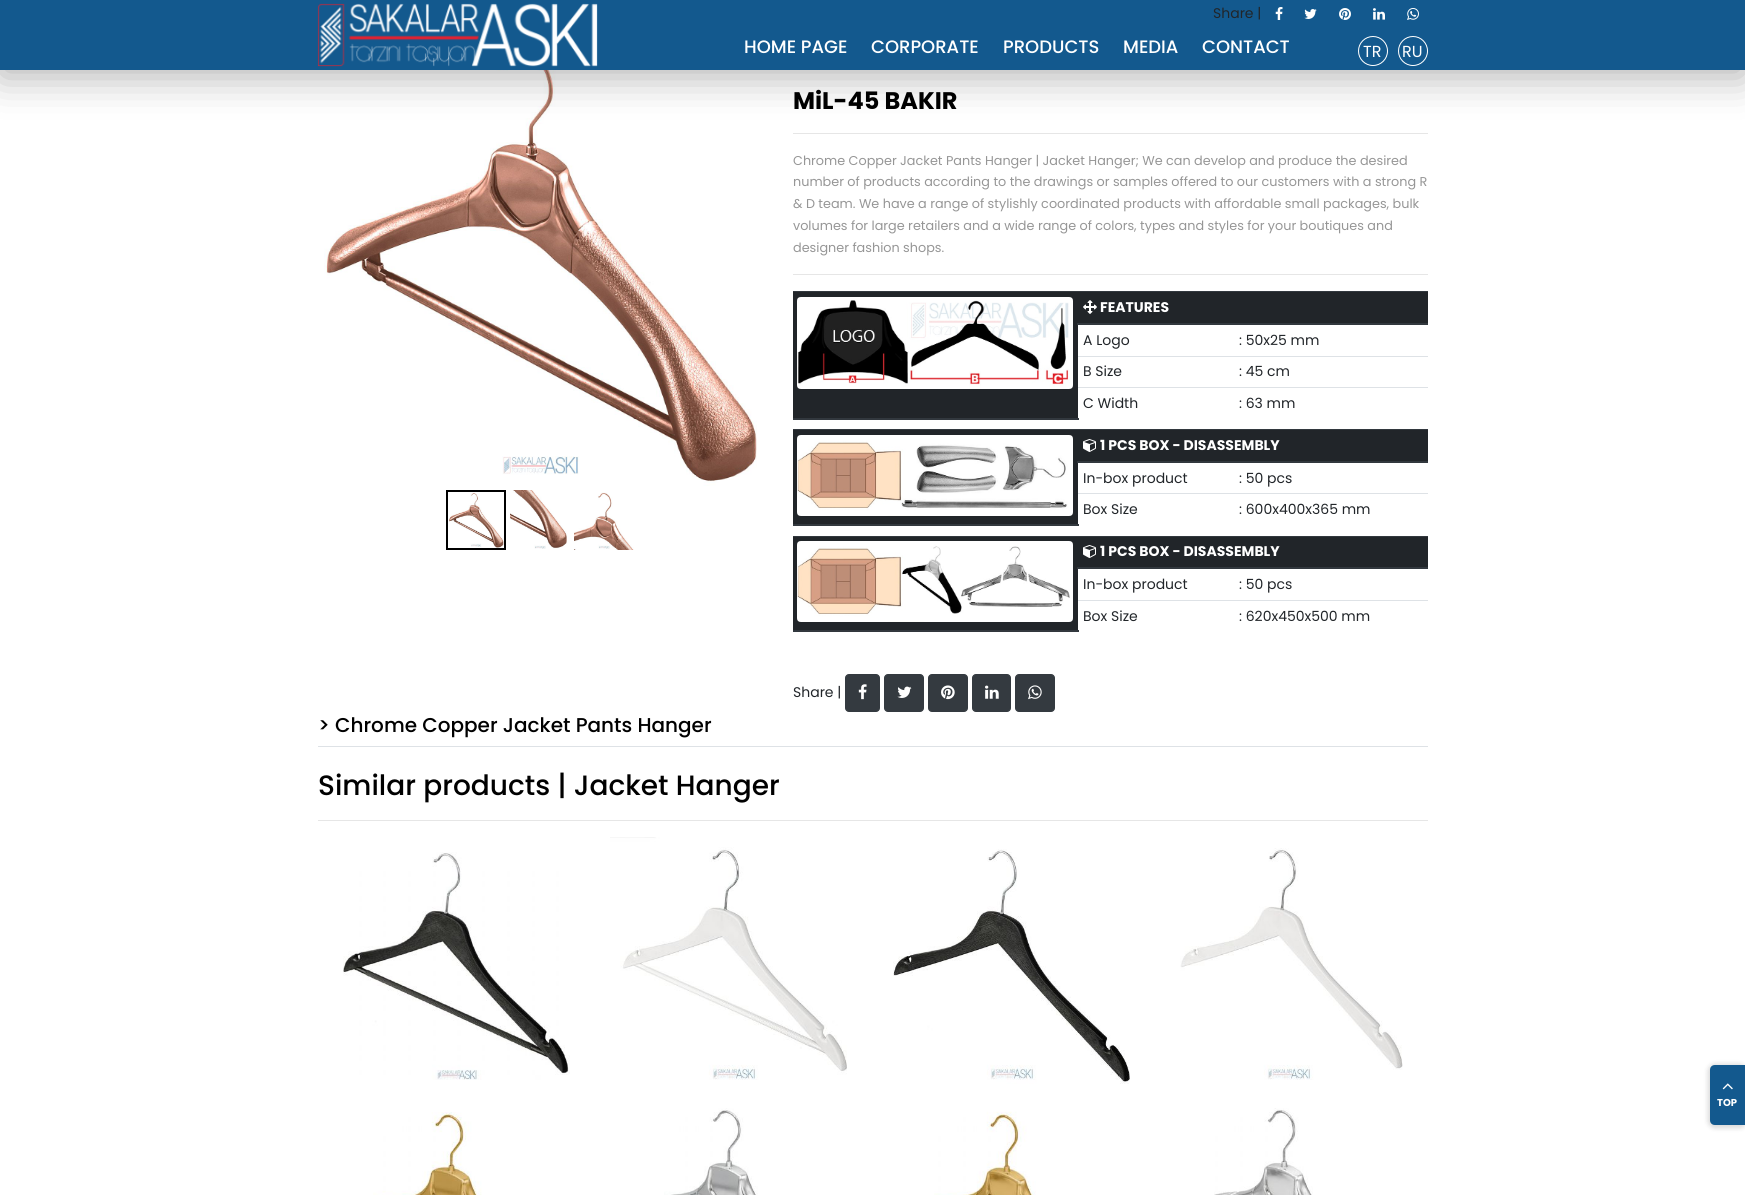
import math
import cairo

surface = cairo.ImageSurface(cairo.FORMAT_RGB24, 1745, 1195)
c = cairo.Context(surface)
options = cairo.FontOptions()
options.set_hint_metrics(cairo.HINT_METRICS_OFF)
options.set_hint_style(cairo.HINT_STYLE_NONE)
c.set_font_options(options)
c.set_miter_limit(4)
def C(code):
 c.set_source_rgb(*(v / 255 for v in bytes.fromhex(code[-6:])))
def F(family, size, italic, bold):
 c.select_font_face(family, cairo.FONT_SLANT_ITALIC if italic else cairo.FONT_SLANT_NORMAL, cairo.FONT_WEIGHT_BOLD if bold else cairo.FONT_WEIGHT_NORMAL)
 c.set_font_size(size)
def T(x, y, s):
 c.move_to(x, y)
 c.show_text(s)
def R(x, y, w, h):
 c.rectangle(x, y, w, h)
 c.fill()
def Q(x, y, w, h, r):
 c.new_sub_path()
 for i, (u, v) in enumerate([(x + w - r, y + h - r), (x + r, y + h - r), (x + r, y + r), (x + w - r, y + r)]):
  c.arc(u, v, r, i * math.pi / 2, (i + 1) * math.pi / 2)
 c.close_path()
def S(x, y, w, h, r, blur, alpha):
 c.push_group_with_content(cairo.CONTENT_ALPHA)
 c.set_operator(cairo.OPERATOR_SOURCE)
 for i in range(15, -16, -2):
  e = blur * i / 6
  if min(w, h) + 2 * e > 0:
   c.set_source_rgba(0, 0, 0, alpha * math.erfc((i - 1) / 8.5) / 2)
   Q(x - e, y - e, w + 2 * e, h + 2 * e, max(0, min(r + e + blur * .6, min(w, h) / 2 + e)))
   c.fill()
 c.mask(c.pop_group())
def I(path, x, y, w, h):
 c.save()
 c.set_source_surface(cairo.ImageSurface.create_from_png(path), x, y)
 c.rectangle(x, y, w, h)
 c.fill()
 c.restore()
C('ffffff')
c.paint()
I('7.png',324,70,433,416)
C('e6e6e6')
R(793,133,635,1)
C('000000')
S(0,7,1745,70,0,20,.3)
C('13598e')
R(0,0,1745,70)
I('1.png',317,3,281,64)
F('Poppins',14,0,0)
C('212529')
T(1213,18,'Share |')
I('2.png',1275,7,8,13)
I('3.png',1304,9,13,10)
I('4.png',1339,8,12,12)
I('5.png',1373,8,12,12)
I('6.png',1407,8,12,12)
F('Poppins Medium',18,0,0)
C('ffffff')
T(744,53,'HOME PAGE')
T(871,53,'CORPORATE')
T(1003,53,'PRODUCTS')
T(1123,53,'MEDIA')
T(1202,53,'CONTACT')
c.new_path()
c.arc(1373,51,14.5,0,2 * math.pi)
c.set_line_width(1)
c.stroke()
F('Poppins',16,0,0)
T(1363,57,'TR')
c.new_path()
c.arc(1413,51,14.5,0,2 * math.pi)
c.stroke()
T(1402,57,'RU')
c.rectangle(447,491,58,58)
C('000000')
c.set_line_width(2)
c.stroke()
I('8.png',449,493,55,55)
I('9.png',510,490,57,59)
I('10.png',574,492,60,58)
F('Poppins',24,0,1)
T(793,109,'MiL-45 BAKIR')
F('Poppins',12.8,0,0)
C('969696')
T(793,165,'Chrome Copper Jacket Pants Hanger | Jacket Hanger; We can develop and produce the desired')
T(793,186,'number of products according to the drawings or samples offered to our customers with a strong R')
T(793,208,'& D team. We have a range of stylishly coordinated products with affordable small packages, bulk')
T(793,230,'volumes for large retailers and a wide range of colors, types and styles for your boutiques and')
T(793,252,'designer fashion shops.')
C('e6e6e6')
R(793,274,635,1)
C('212529')
R(793,292,285,126)
C('32383e')
R(793,418,286,2)
I('11.png',797,297,276,92)
C('212529')
R(1078,292,350,31)
C('32383e')
R(793,291,635,1)
R(1077,323,351,2)
I('12.png',1083,300,14,14)
F('Poppins',14,0,1)
C('ffffff')
T(1100,312,'FEATURES')
F('Poppins',14,0,0)
C('212529')
T(1083,345,'A Logo')
T(1239,345,': 50x25 mm')
T(1083,376,'B Size')
C('dee2e6')
R(1078,356,350,1)
C('212529')
T(1239,376,': 45 cm')
T(1083,408,'C Width')
C('dee2e6')
R(1078,387,350,1)
C('212529')
T(1239,408,': 63 mm')
R(793,430,285,94)
C('32383e')
R(793,524,286,2)
I('13.png',797,435,276,81)
C('212529')
R(1078,430,350,31)
C('32383e')
R(793,429,635,1)
R(1077,461,351,2)
I('14.png',1083,439,13,13)
F('Poppins',14,0,1)
C('ffffff')
T(1100,450,'1 PCS BOX - DISASSEMBLY')
F('Poppins',14,0,0)
C('212529')
T(1083,483,'In-box product')
T(1239,483,': 50 pcs')
T(1083,514,'Box Size')
C('dee2e6')
R(1078,493,350,1)
C('212529')
T(1239,514,': 600x400x365 mm')
R(793,537,285,93)
C('32383e')
R(793,630,286,2)
I('15.png',797,541,276,81)
C('212529')
R(1078,537,350,30)
C('32383e')
R(793,536,635,1)
R(1077,567,351,2)
I('14.png',1083,545,13,13)
F('Poppins',14,0,1)
C('ffffff')
T(1100,556,'1 PCS BOX - DISASSEMBLY')
F('Poppins',14,0,0)
C('212529')
T(1083,589,'In-box product')
T(1239,589,': 50 pcs')
T(1083,621,'Box Size')
C('dee2e6')
R(1078,600,350,1)
C('212529')
T(1239,621,': 620x450x500 mm')
T(793,697,'Share |')
C('343a40')
Q(845.5,674.5,34,37,3.5)
c.fill_preserve()
c.set_line_width(1)
c.stroke()
I('16.png',858,684,9,16)
Q(884.5,674.5,39,37,3.5)
c.fill_preserve()
c.stroke()
I('17.png',897,686,15,12)
Q(928.5,674.5,39,37,3.5)
c.fill_preserve()
c.stroke()
I('18.png',941,685,14,15)
Q(972.5,674.5,38,37,3.5)
c.fill_preserve()
c.stroke()
I('19.png',985,685,14,14)
Q(1015.5,674.5,39,37,3.5)
c.fill_preserve()
c.stroke()
I('20.png',1028,685,14,15)
C('dee2e6')
R(318,746,1110,1)
F('Poppins Medium',20,0,0)
C('000000')
T(318,732,'> Chrome Copper Jacket Pants Hanger')
F('Poppins Medium',28,0,0)
T(318,795,'Similar products | Jacket Hanger')
C('e6e6e6')
R(318,820,1110,1)
I('21.png',343,852,227,228)
I('22.png',610,837,237,243)
I('23.png',893,849,237,235)
I('24.png',1180,848,223,232)
I('25.png',373,1112,109,83)
I('26.png',664,1108,94,87)
I('27.png',934,1111,102,84)
I('28.png',1214,1108,99,87)
C('000000')
S(1708,1064,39,64,7,2.5,.15)
C('13598e')
c.new_path()
c.move_to(1715,1065)
c.line_to(1745,1065)
c.line_to(1745,1125)
c.line_to(1715,1125)
c.curve_to(1712,1125,1710,1123,1710,1120)
c.line_to(1710,1070)
c.curve_to(1710,1067,1712,1065,1715,1065)
c.close_path()
c.fill()
I('29.png',1722,1083,11,7)
F('Poppins',10,0,1)
C('ffffff')
T(1717,1106,'TOP')
surface.write_to_png('o.png')
